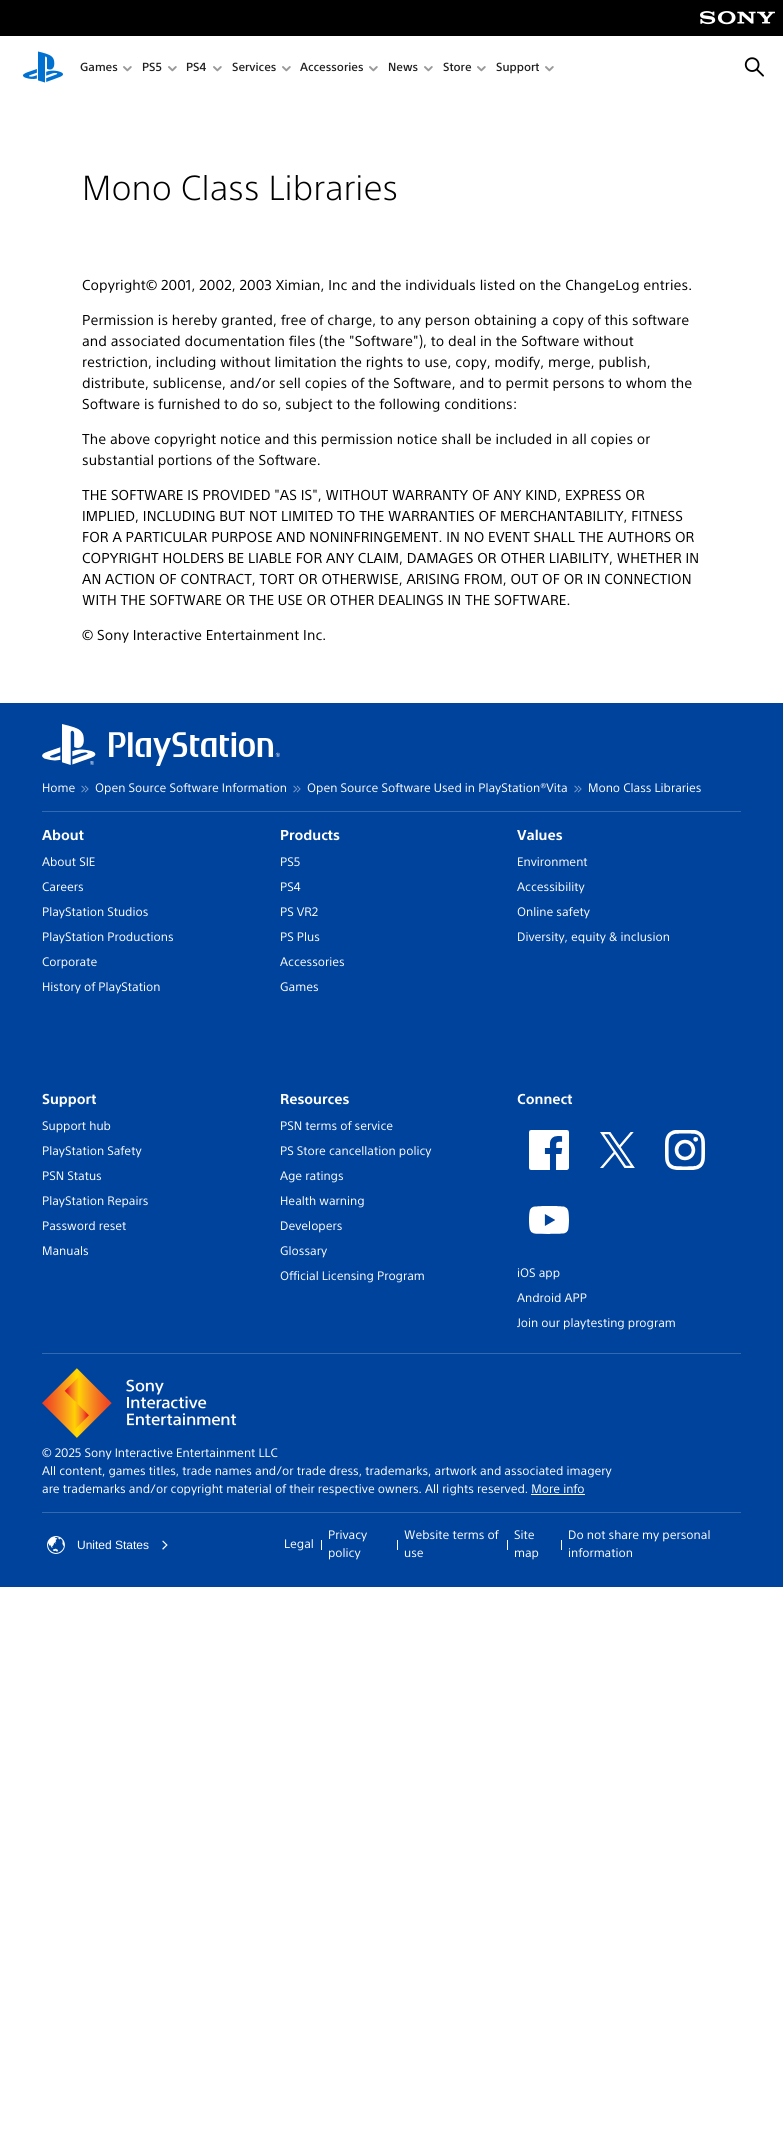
import math
import cairo

surface = cairo.ImageSurface(cairo.FORMAT_RGB24, 783, 2146)
c = cairo.Context(surface)
options = cairo.FontOptions()
options.set_hint_metrics(cairo.HINT_METRICS_OFF)
options.set_hint_style(cairo.HINT_STYLE_NONE)
c.set_font_options(options)
c.set_miter_limit(4)
def C(code):
 c.set_source_rgb(*(v / 255 for v in bytes.fromhex(code[-6:])))
def F(family, size, italic, bold):
 c.select_font_face(family, cairo.FONT_SLANT_ITALIC if italic else cairo.FONT_SLANT_NORMAL, cairo.FONT_WEIGHT_BOLD if bold else cairo.FONT_WEIGHT_NORMAL)
 c.set_font_size(size)
def T(x, y, s):
 c.move_to(x, y)
 c.show_text(s)
def L(x, y, s, letter, word):
 c.move_to(x, y)
 for ch in s:
  c.show_text(ch)
  c.rel_move_to(letter + word * (ch == ' '), 0)
def R(x, y, w, h):
 c.rectangle(x, y, w, h)
 c.fill()
def I(path, x, y, w, h):
 c.save()
 c.set_source_surface(cairo.ImageSurface.create_from_png(path), x, y)
 c.rectangle(x, y, w, h)
 c.fill()
 c.restore()
C('ffffff')
c.paint()
C('000000')
R(0,0,783,36)
I('1.png',700,11,75,14)
I('2.png',23,51,40,32)
F('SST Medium',11.5,0,0)
C('1f1f1f')
T(80,71,'Games')
I('3.png',123,66,9,6)
T(142,71,'PS5')
I('3.png',168,66,9,6)
T(186,71,'PS4')
I('3.png',213,66,9,6)
T(232,71,'Services')
I('3.png',282,66,9,6)
T(300,71,'Accessories')
I('3.png',369,66,9,6)
T(388,71,'News')
I('3.png',424,66,9,6)
T(443,71,'Store')
I('3.png',477,66,9,6)
T(496,71,'Support')
I('3.png',545,66,9,6)
I('4.png',744,57,20,20)
F('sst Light',34,0,0)
C('000000')
L(82,200,'Mono Class Libraries',.1,0)
F('sst',14,0,0)
L(82,290,'Copyright© 2001, 2002, 2003 Ximian, Inc and the individuals listed on the ChangeLog entries.',.1,0)
L(82,325,'Permission is hereby granted, free of charge, to any person obtaining a copy of this software',.1,0)
L(82,346,'and associated documentation files (the "Software"), to deal in the Software without',.1,0)
L(82,367,'restriction, including without limitation the rights to use, copy, modify, merge, publish,',.1,0)
L(82,388,'distribute, sublicense, and/or sell copies of the Software, and to permit persons to whom the',.1,0)
L(82,409,'Software is furnished to do so, subject to the following conditions:',.1,0)
L(82,444,'The above copyright notice and this permission notice shall be included in all copies or',.1,0)
L(82,465,'substantial portions of the Software.',.1,0)
L(82,500,'THE SOFTWARE IS PROVIDED "AS IS", WITHOUT WARRANTY OF ANY KIND, EXPRESS OR',.1,0)
L(82,521,'IMPLIED, INCLUDING BUT NOT LIMITED TO THE WARRANTIES OF MERCHANTABILITY, FITNESS',.1,0)
L(82,542,'FOR A PARTICULAR PURPOSE AND NONINFRINGEMENT. IN NO EVENT SHALL THE AUTHORS OR',.1,0)
L(82,563,'COPYRIGHT HOLDERS BE LIABLE FOR ANY CLAIM, DAMAGES OR OTHER LIABILITY, WHETHER IN',.1,0)
L(82,584,'AN ACTION OF CONTRACT, TORT OR OTHERWISE, ARISING FROM, OUT OF OR IN CONNECTION',.1,0)
L(82,605,'WITH THE SOFTWARE OR THE USE OR OTHER DEALINGS IN THE SOFTWARE.',.1,0)
L(82,640,'© Sony Interactive Entertainment Inc.',.1,0)
C('00439c')
R(0,703,783,884)
I('5.png',42,724,238,42)
F('sst',12,0,0)
C('ffffff')
T(42,792,'Home')
I('6.png',81,785,8,8)
T(95,792,'Open Source Software Information')
I('6.png',293,785,8,8)
T(307,792,'Open Source Software Used in PlayStation®Vita')
I('6.png',574,785,8,8)
T(588,792,'Mono Class Libraries')
C('3369b0')
R(42,811,699,1)
F('sst',14,0,1)
C('ffffff')
T(42,840,'About')
F('sst',12,0,0)
T(42,866,'About SIE')
T(42,891,'Careers')
T(42,916,'PlayStation Studios')
T(42,941,'PlayStation Productions')
T(42,966,'Corporate')
T(42,991,'History of PlayStation')
F('sst',14,0,1)
T(280,840,'Products')
F('sst',12,0,0)
T(280,866,'PS5')
T(280,891,'PS4')
T(280,916,'PS VR2')
T(280,941,'PS Plus')
T(280,966,'Accessories')
T(280,991,'Games')
F('sst',14,0,1)
T(517,840,'Values')
F('sst',12,0,0)
T(517,866,'Environment')
T(517,891,'Accessibility')
T(517,916,'Online safety')
T(517,941,'Diversity, equity & inclusion')
F('sst',14,0,1)
T(42,1104,'Support')
F('sst',12,0,0)
T(42,1130,'Support hub')
T(42,1155,'PlayStation Safety')
T(42,1180,'PSN Status')
T(42,1205,'PlayStation Repairs')
T(42,1230,'Password reset')
T(42,1255,'Manuals')
F('sst',14,0,1)
T(280,1104,'Resources')
F('sst',12,0,0)
T(280,1130,'PSN terms of service')
T(280,1155,'PS Store cancellation policy')
T(280,1180,'Age ratings')
T(280,1205,'Health warning')
T(280,1230,'Developers')
T(280,1255,'Glossary')
T(280,1280,'Official Licensing Program')
F('sst',14,0,1)
T(517,1104,'Connect')
I('7.png',529,1130,40,40)
I('8.png',600,1132,35,36)
I('9.png',665,1130,40,40)
I('10.png',529,1206,40,28)
F('sst',12,0,0)
T(517,1277,'iOS app')
T(517,1302,'Android APP')
T(517,1327,'Join our playtesting program')
C('3369b0')
R(42,1353,699,1)
I('11.png',42,1368,195,70)
C('ffffff')
T(42,1457,'© 2025 Sony Interactive Entertainment LLC')
T(42,1475,'All content, games titles, trade names and/or trade dress, trademarks, artwork and associated imagery')
T(42,1493,'are trademarks and/or copyright material of their respective owners. All rights reserved. More info')
R(531,1494,54,1)
C('3369b0')
R(42,1512,699,1)
I('12.png',47,1536,18,18)
F('Liberation Sans',12,0,0)
C('ffffff')
T(77,1549,'United States')
I('13.png',162,1540,6,10)
F('sst',12,0,0)
T(284,1548,'Legal')
R(321,1540,1,10)
T(328,1539,'Privacy')
T(328,1557,'policy')
R(397,1540,1,10)
T(404,1539,'Website terms of')
T(404,1557,'use')
R(507,1540,1,10)
T(514,1539,'Site')
T(514,1557,'map')
R(561,1540,1,10)
T(568,1539,'Do not share my personal')
T(568,1557,'information')
surface.write_to_png('o.png')
